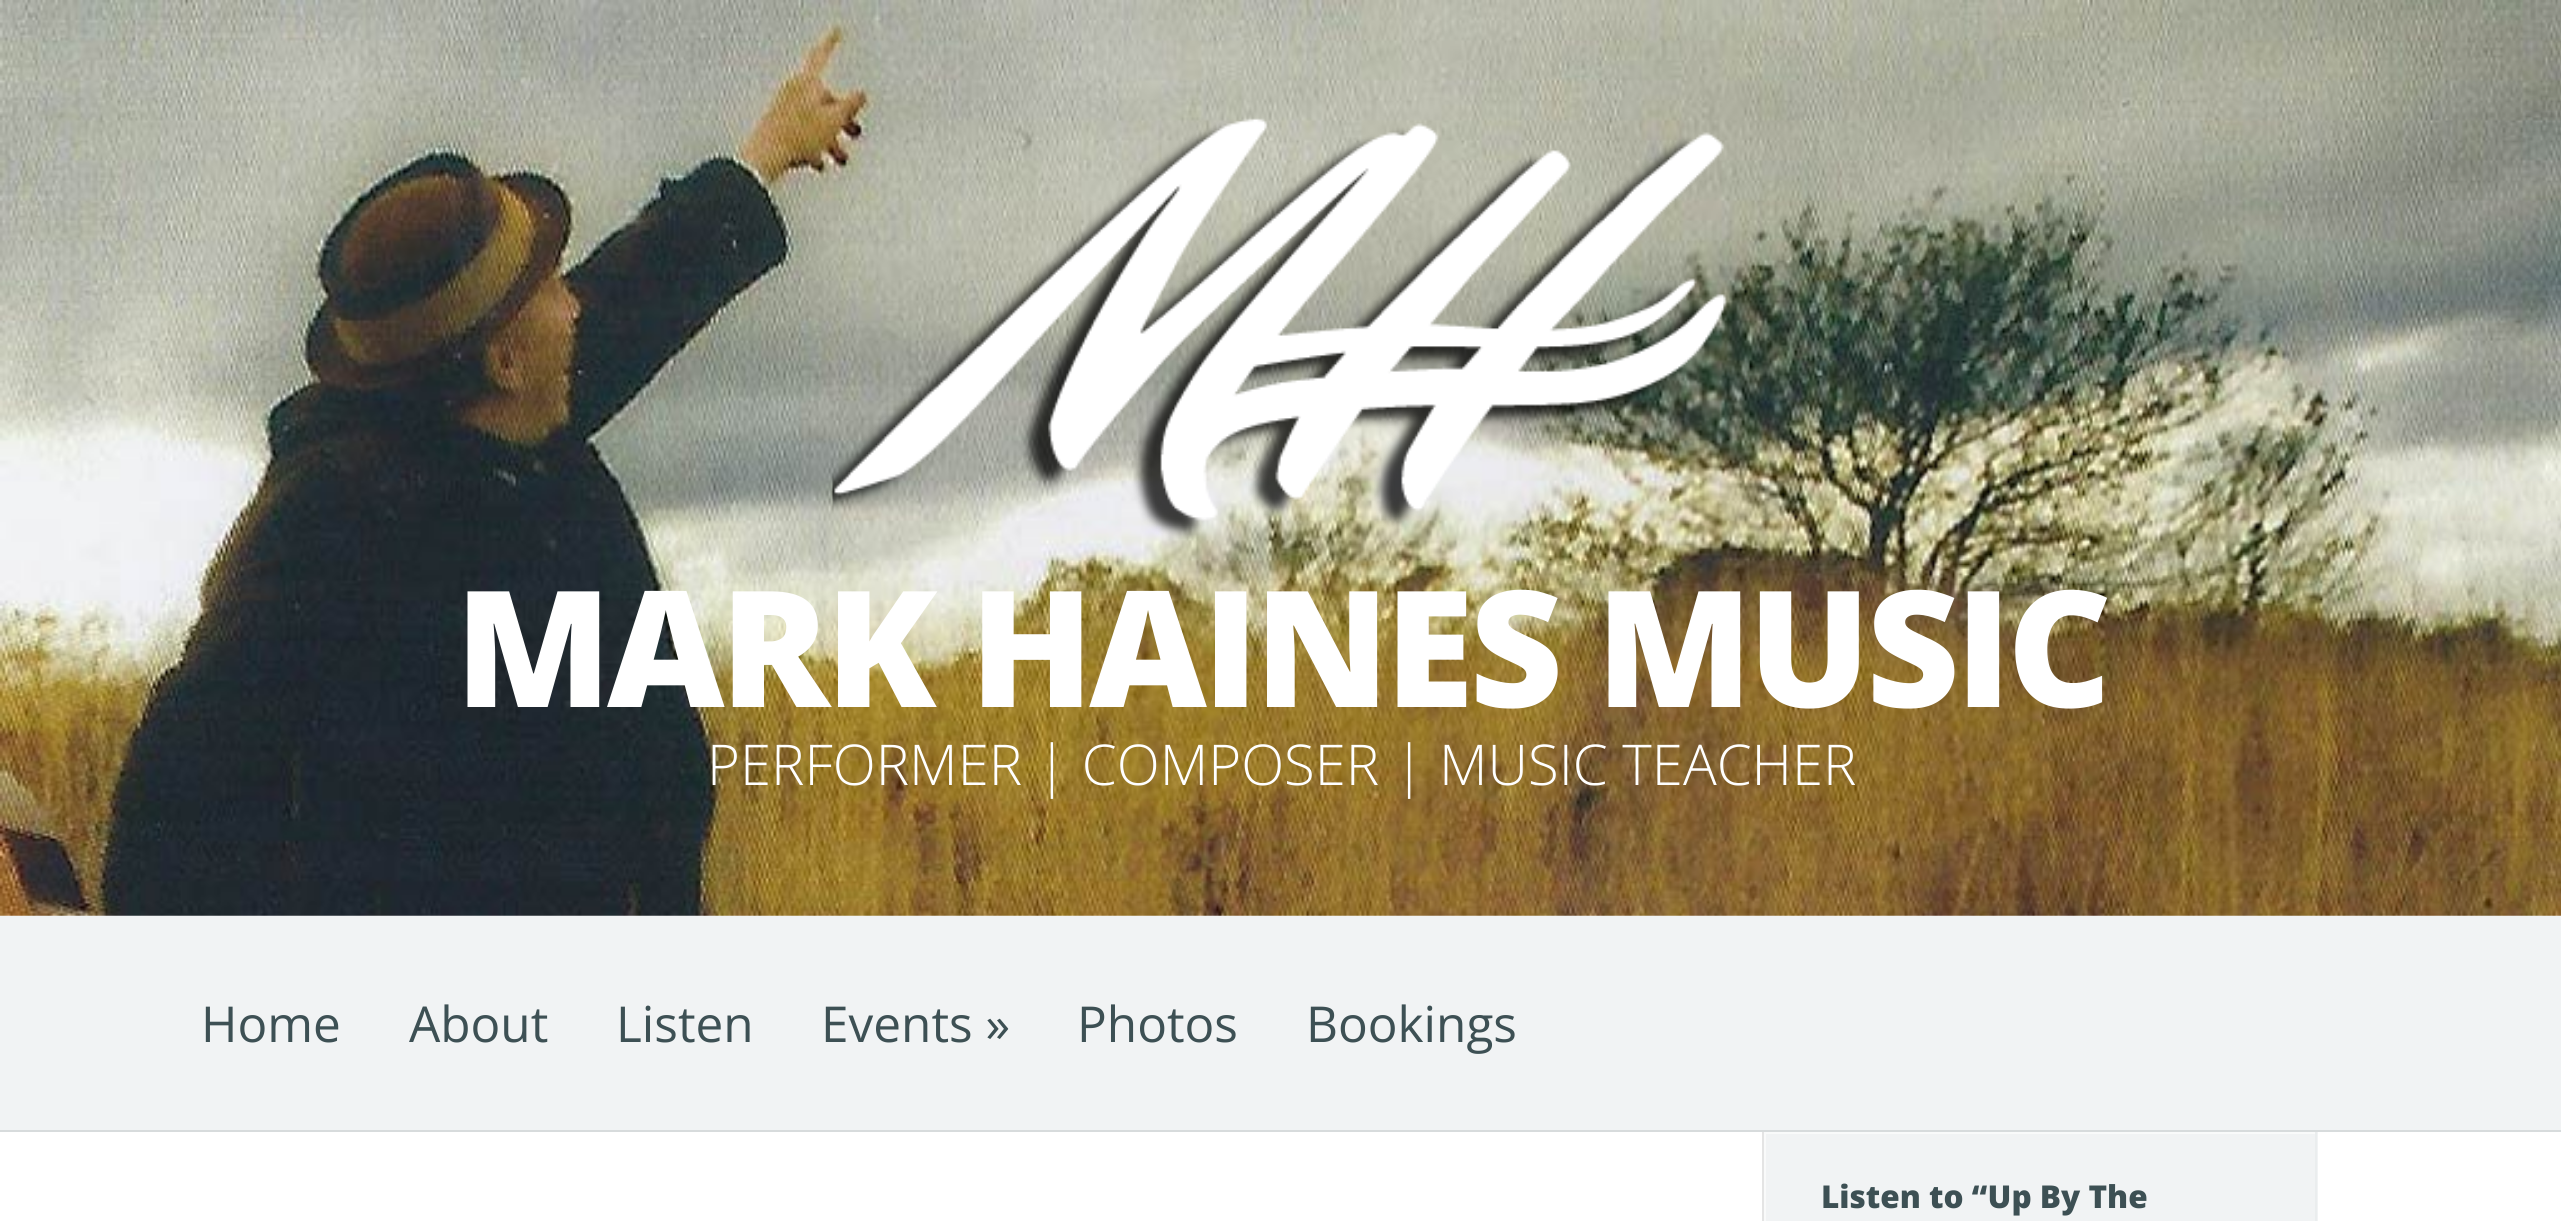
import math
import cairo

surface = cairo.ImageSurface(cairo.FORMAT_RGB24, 2561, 1221)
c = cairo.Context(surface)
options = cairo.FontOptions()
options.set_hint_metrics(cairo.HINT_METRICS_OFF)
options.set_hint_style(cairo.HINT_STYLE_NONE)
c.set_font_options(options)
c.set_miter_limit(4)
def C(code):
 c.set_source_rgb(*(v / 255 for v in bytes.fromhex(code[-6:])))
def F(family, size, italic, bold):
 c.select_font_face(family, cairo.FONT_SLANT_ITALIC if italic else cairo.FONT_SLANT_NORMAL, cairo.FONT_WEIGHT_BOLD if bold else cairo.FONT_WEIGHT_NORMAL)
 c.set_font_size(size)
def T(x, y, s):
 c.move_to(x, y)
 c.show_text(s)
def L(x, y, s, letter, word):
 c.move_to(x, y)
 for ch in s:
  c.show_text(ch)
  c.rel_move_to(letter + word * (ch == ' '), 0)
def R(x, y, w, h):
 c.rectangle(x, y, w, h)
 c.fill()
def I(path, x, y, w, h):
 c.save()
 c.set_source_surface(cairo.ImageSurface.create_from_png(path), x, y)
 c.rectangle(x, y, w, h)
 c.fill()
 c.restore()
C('ffffff')
c.paint()
I('1.png',0,0,2561,916)
I('2.png',832,118,895,421)
F('Open Sans ExtraBold',162,0,0)
C('ffffff')
L(455,707,'MARK HAINES MUSIC',-4.5,0)
F('Open Sans Light',56.25,0,0)
T(707,785,'PERFORMER | COMPOSER | MUSIC TEACHER')
C('f1f3f4')
R(0,916,2561,214)
C('d7dbdc')
R(0,1130,2561,2)
F('Open Sans',49.5,0,0)
C('3d5054')
T(201,1042,'Home')
T(409,1042,'About')
T(616,1042,'Listen')
T(821,1042,'Events »')
T(1077,1042,'Photos')
T(1306,1042,'Bookings')
C('e4e4e4')
R(1762,1132,2,89)
C('f1f3f4')
R(1766,1132,552,89)
c.save()
c.rectangle(1764,1132,551,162)
c.clip()
C('f9fafa')
c.set_fill_rule(cairo.FILL_RULE_EVEN_ODD)
c.new_path()
c.move_to(1541,909)
c.line_to(2538,909)
c.line_to(2538,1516)
c.line_to(1541,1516)
c.close_path()
c.move_to(1766,1134)
c.line_to(2318,1134)
c.line_to(2318,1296)
c.line_to(1766,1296)
c.close_path()
c.fill()
c.restore()
C('eaedee')
R(2315,1132,2,89)
F('Open Sans ExtraBold',31.5,0,0)
C('3d5054')
T(1821,1208,'Listen to “Up By The')
surface.write_to_png('o.png')
